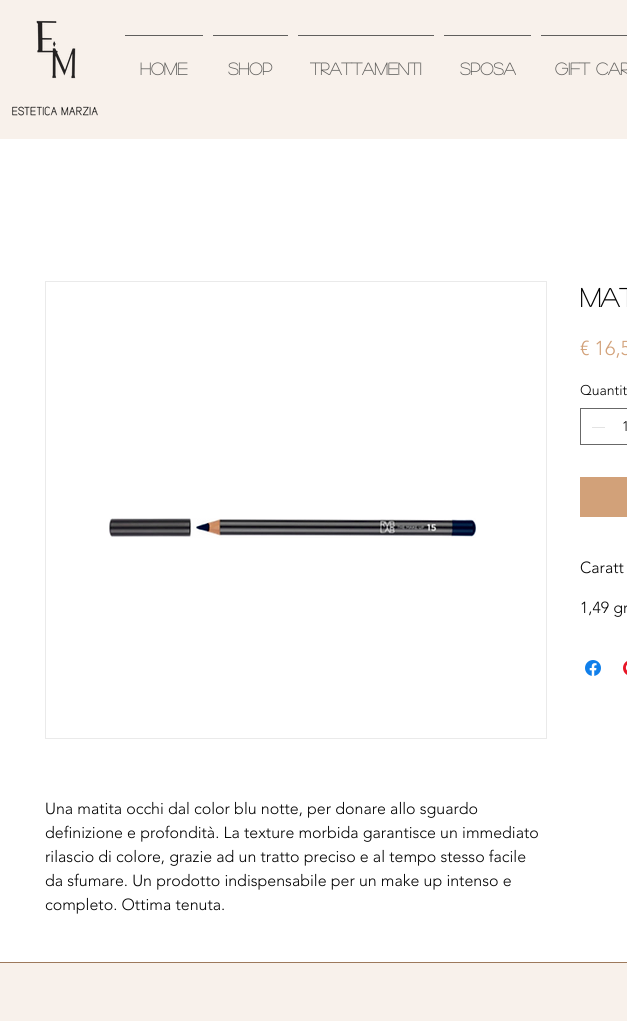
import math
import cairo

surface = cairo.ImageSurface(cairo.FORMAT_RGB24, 627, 1021)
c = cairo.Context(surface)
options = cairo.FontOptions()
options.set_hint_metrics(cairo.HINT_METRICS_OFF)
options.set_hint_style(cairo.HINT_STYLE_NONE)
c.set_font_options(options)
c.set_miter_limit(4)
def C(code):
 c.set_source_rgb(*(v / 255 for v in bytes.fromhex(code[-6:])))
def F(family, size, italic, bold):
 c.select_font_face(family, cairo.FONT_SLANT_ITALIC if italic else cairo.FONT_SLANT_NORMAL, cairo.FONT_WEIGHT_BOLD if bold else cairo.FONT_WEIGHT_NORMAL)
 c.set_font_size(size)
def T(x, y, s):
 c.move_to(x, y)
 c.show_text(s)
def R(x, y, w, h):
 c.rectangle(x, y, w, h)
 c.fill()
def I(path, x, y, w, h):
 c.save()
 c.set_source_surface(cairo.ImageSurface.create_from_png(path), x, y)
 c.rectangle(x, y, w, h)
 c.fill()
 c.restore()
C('ffffff')
c.paint()
C('f8f1eb')
R(0,0,627,139)
I('1.png',36,20,40,59)
C('605f5d')
R(125,35,78,1)
F('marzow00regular',17,0,1)
T(140,75,'HOME')
R(213,35,75,1)
T(228,75,'SHOP')
R(298,35,136,1)
T(310,75,'TRATTAMENTI')
R(444,35,87,1)
T(460,75,'SPOSA')
R(541,35,86,1)
T(555,75,'GIFT CAR')
I('2.png',12,106,86,10)
F('marzow00regular',26,0,1)
C('030303')
T(580,307,'Mat')
F('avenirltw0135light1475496 Light',20,0,0)
C('d2a179')
T(580,355,'€ 16,5')
F('avenirltw0135light1475496 Light',14,0,0)
C('030303')
T(580,395,'Quantit')
c.rectangle(580.5,408.5,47,36)
C('686868')
c.set_line_width(1)
c.stroke()
C('e3e3e3')
R(592,427,13,1)
C('030303')
T(622,431,'1')
C('d2a179')
R(580,477,47,40)
F('avenirltw0135light1475496 Light',16,0,0)
C('030303')
T(580,573,'Caratt')
T(580,613,'1,49 gr')
I('3.png',585,660,16,16)
I('4.png',623,661,4,14)
c.rectangle(45.5,281.5,501,457)
C('eaeaea')
c.stroke()
I('5.png',109,518,367,20)
C('030303')
T(45,814,'Una matita occhi dal color blu notte, per donare allo sguardo')
T(45,838,'definizione e profondità. La texture morbida garantisce un immediato')
T(45,862,'rilascio di colore, grazie ad un tratto preciso e al tempo stesso facile')
T(45,886,'da sfumare. Un prodotto indispensabile per un make up intenso e')
T(45,910,'completo. Ottima tenuta.')
C('9d795b')
R(0,962,627,1)
C('f8f1eb')
R(0,963,627,58)
surface.write_to_png('o.png')
